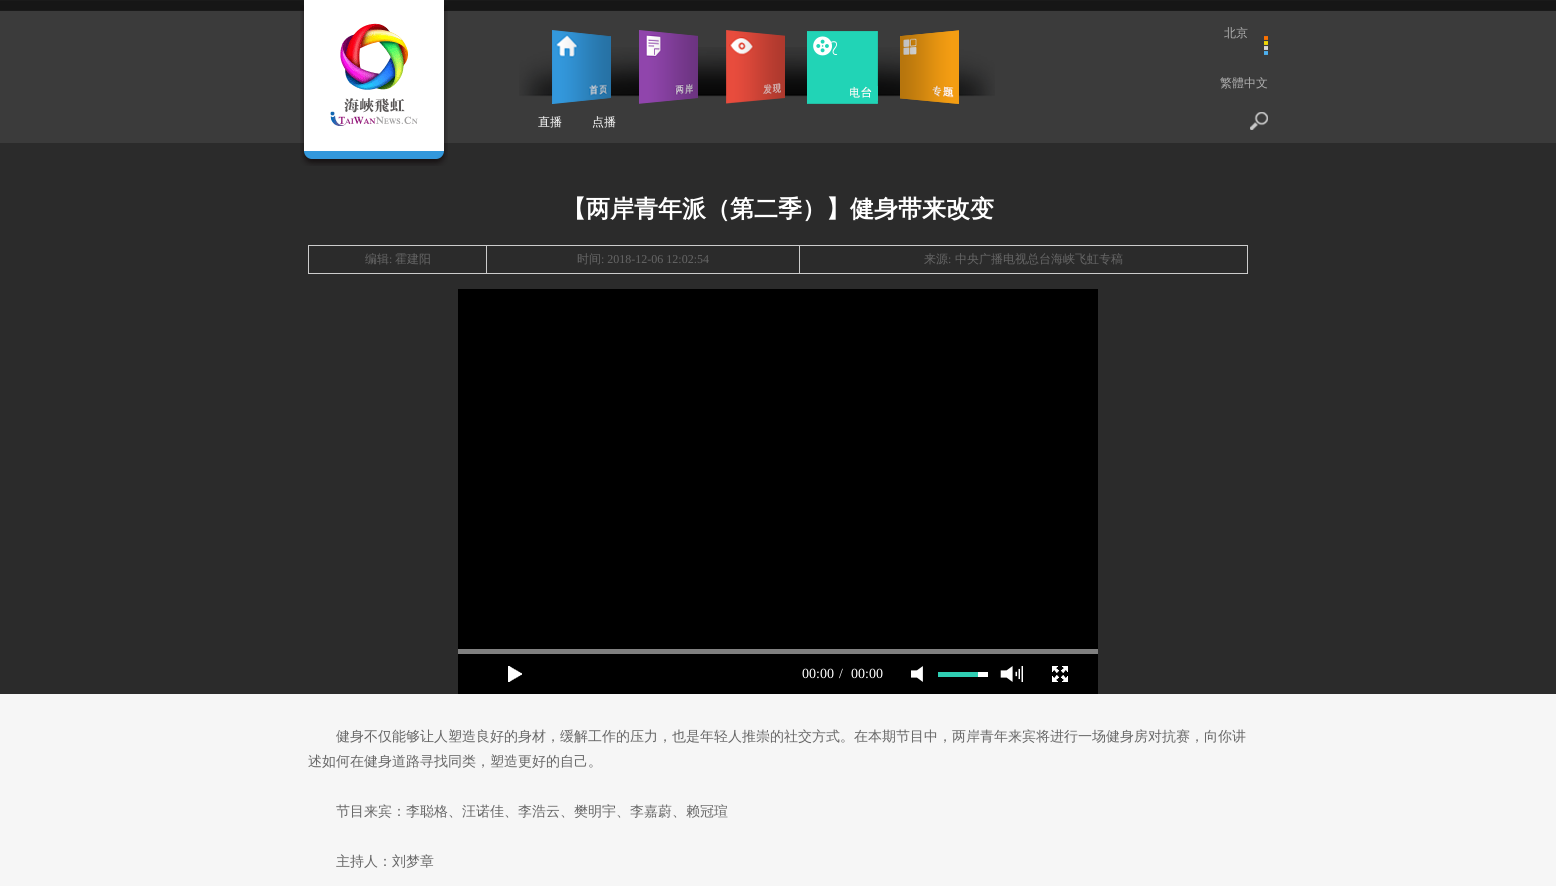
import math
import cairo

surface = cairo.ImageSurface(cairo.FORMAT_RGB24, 1556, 886)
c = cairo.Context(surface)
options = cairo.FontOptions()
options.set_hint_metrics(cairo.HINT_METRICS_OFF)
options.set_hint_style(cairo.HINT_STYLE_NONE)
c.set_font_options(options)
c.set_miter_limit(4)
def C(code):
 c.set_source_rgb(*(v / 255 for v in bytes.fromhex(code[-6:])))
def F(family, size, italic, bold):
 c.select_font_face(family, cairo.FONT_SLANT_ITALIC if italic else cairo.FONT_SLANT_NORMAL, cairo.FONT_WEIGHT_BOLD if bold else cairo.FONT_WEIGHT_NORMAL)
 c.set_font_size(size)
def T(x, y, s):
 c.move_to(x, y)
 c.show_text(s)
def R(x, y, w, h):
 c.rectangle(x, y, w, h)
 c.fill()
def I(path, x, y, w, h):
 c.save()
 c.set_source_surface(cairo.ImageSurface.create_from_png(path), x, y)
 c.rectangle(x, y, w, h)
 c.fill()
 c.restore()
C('2b2b2b')
c.paint()
I('1.png',0,0,1556,143)
I('2.png',300,5,148,161)
I('3.png',304,0,140,151)
F('WenQuanYi Zen Hei Medium',12,0,0)
C('b0b0b0')
T(1224,37,'北京')
I('4.png',1264,36,4,19)
T(1220,87,'繁體中文')
I('5.png',1250,112,18,18)
I('6.png',519,47,476,50)
I('7.png',552,30,59,74)
I('8.png',639,30,59,74)
I('9.png',726,30,59,74)
I('10.png',807,31,71,73)
I('11.png',900,30,59,74)
C('ffffff')
T(538,126,'直播')
T(592,126,'点播')
F('WenQuanYi Zen Hei',24,0,1)
T(562,217,'【两岸青年派（第二季）】健身带来改变')
C('cccccc')
R(308,245,940,1)
R(1247,245,1,29)
R(308,273,940,1)
R(308,245,1,29)
R(486,245,1,29)
F('WenQuanYi Zen Hei Medium',12,0,0)
C('666666')
T(365,263,'编辑')
F('Liberation Serif',12,0,0)
T(389,263,':')
F('WenQuanYi Zen Hei Medium',12,0,0)
T(395,263,'霍建阳')
C('cccccc')
R(799,245,1,29)
C('666666')
T(577,263,'时间')
F('Liberation Serif',12,0,0)
T(601,263,': 2018-12-06 12:02:54')
F('WenQuanYi Zen Hei Medium',12,0,0)
T(924,263,'来源')
F('Liberation Serif',12,0,0)
T(948,263,':')
F('WenQuanYi Zen Hei Medium',12,0,0)
T(955,263,'中央广播电视总台海峡飞虹专稿')
C('000000')
R(458,289,640,360)
C('808080')
R(458,649,640,5)
C('000000')
R(458,654,640,40)
I('12.png',508,666,14,16)
I('13.png',911,666,12,16)
I('14.png',1000,666,23,16)
I('15.png',1052,666,16,16)
C('ffffff')
R(978,672,10,5)
C('2fceb3')
R(938,672,40,5)
F('Liberation Serif',14,0,0)
C('ffffff')
T(802,678,'00:00')
T(839,678,'/')
T(851,678,'00:00')
C('f6f6f6')
R(0,694,1556,192)
F('WenQuanYi Zen Hei Medium',14,0,0)
C('666666')
T(336,741,'健身不仅能够让人塑造良好的身材，缓解工作的压力，也是年轻人推崇的社交方式。在本期节目中，两岸青年来宾将进行一场健身房对抗赛，向你讲')
T(308,766,'述如何在健身道路寻找同类，塑造更好的自己。')
T(336,816,'节目来宾：李聪格、汪诺佳、李浩云、樊明宇、李嘉蔚、赖冠瑄')
T(336,866,'主持人：刘梦章')
surface.write_to_png('o.png')
